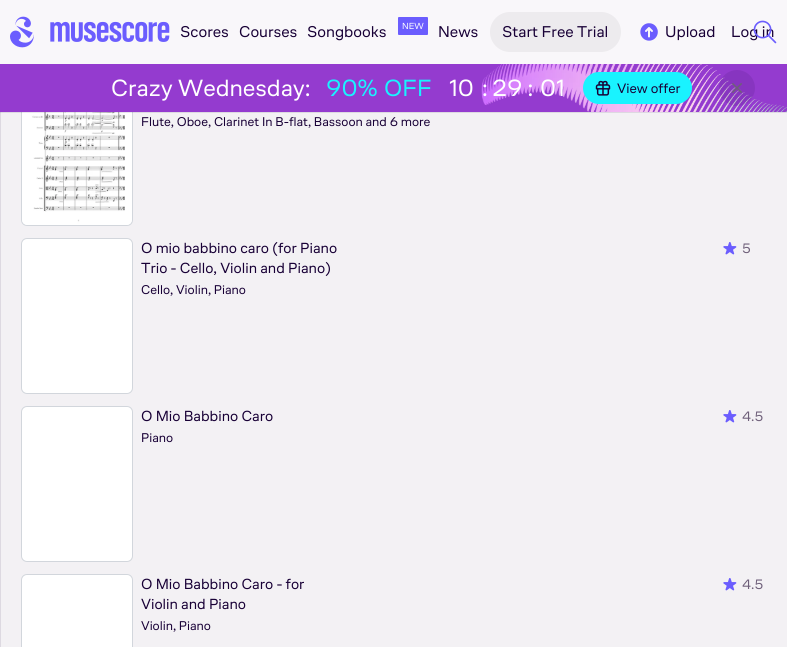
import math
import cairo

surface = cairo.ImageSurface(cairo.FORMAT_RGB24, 787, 647)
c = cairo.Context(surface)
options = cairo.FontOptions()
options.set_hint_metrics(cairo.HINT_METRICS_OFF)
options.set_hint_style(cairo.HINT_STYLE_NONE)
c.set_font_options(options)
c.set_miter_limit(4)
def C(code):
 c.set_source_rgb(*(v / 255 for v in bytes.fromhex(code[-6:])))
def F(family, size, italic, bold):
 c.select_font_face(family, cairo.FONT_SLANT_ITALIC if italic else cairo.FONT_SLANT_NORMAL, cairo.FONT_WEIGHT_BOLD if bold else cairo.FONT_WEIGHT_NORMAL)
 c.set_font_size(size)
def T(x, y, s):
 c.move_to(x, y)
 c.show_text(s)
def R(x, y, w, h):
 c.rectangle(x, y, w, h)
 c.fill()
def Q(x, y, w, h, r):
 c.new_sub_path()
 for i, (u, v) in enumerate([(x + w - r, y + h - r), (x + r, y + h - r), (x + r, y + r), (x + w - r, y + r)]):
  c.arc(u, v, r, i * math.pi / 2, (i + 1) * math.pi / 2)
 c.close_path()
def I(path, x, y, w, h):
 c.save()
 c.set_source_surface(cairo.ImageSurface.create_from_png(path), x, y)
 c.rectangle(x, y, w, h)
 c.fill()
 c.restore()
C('f3f1f4')
c.paint()
C('ddd9e1')
R(0,112,1,535)
C('ffffff')
Q(21.5,70.5,111,155,5.5)
c.fill_preserve()
C('d2d6dc')
c.set_line_width(1)
c.stroke()
I('7.png',22,112,110,113)
c.set_source_rgba(0.094,0,0.212,0.1)
R(0,112,787,1)
C('f9f7fa')
R(0,0,787,64)
I('1.png',10,16,160,32)
F('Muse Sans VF',16,0,0)
C('180036')
T(180,37,'Scores')
T(239,37,'Courses')
T(307,37,'Songbooks')
C('6b5dfe')
Q(398,17,30,18,1)
c.fill()
F('Muse Sans VF',9,0,0)
C('ffffff')
T(402,29,'NEW')
F('Muse Sans VF',16,0,0)
C('180036')
T(438,37,'News')
T(731,37,'Log in')
I('2.png',753,20,24,24)
C('edebee')
Q(490,12,131,40,20)
c.fill()
C('180036')
T(502,37,'Start Free Trial')
I('3.png',640,23,18,18)
T(665,37,'Upload')
C('943bcf')
R(0,64,787,48)
F('Muse Sans VF',24,0,0)
C('ffffff')
T(111,96,'Crazy')
T(178,96,'Wednesday:')
C('19f3ff')
T(326,96,'90%')
T(384,96,'OFF')
C('ffffff')
T(449,96,'10')
I('4.png',481,64,306,48)
T(482,96,':')
T(492,96,'29 :')
T(540,96,'01')
C('19f3ff')
Q(583,72,109,32,16)
c.fill()
I('5.png',595,80,16,16)
F('Muse Sans VF',14,0,0)
C('180036')
T(617,93,'View offer')
c.set_source_rgba(0.094,0,0.212,0.1)
c.new_path()
c.arc(737,88,18,0,2 * math.pi)
c.fill()
I('6.png',732,83,10,10)
F('Muse Sans VF',13,0,0)
C('180036')
T(141,126,'Flute, Oboe, Clarinet In B-flat, Bassoon and 6 more')
C('ffffff')
Q(21.5,238.5,111,155,5.5)
c.fill_preserve()
C('d2d6dc')
c.stroke()
F('Muse Sans VF',15,0,0)
C('180036')
T(141,253,'O mio babbino caro (for Piano')
T(141,273,'Trio - Cello, Violin and Piano)')
F('Muse Sans VF',13,0,0)
T(141,294,'Cello, Violin, Piano')
I('8.png',723,242,14,13)
F('Muse Sans VF',14,0,0)
C('6e5f79')
T(742,253,'5')
C('ffffff')
Q(21.5,406.5,111,155,5.5)
c.fill_preserve()
C('d2d6dc')
c.stroke()
F('Muse Sans VF',15,0,0)
C('180036')
T(141,421,'O Mio Babbino Caro')
F('Muse Sans VF',13,0,0)
T(141,442,'Piano')
I('8.png',723,410,14,13)
F('Muse Sans VF',14,0,0)
C('6e5f79')
T(742,421,'4.5')
C('ffffff')
Q(21.5,574.5,111,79,5.5)
c.fill_preserve()
C('d2d6dc')
c.stroke()
F('Muse Sans VF',15,0,0)
C('180036')
T(141,589,'O Mio Babbino Caro - for')
T(141,609,'Violin and Piano')
F('Muse Sans VF',13,0,0)
T(141,630,'Violin, Piano')
I('8.png',723,578,14,13)
F('Muse Sans VF',14,0,0)
C('6e5f79')
T(742,589,'4.5')
surface.write_to_png('o.png')
